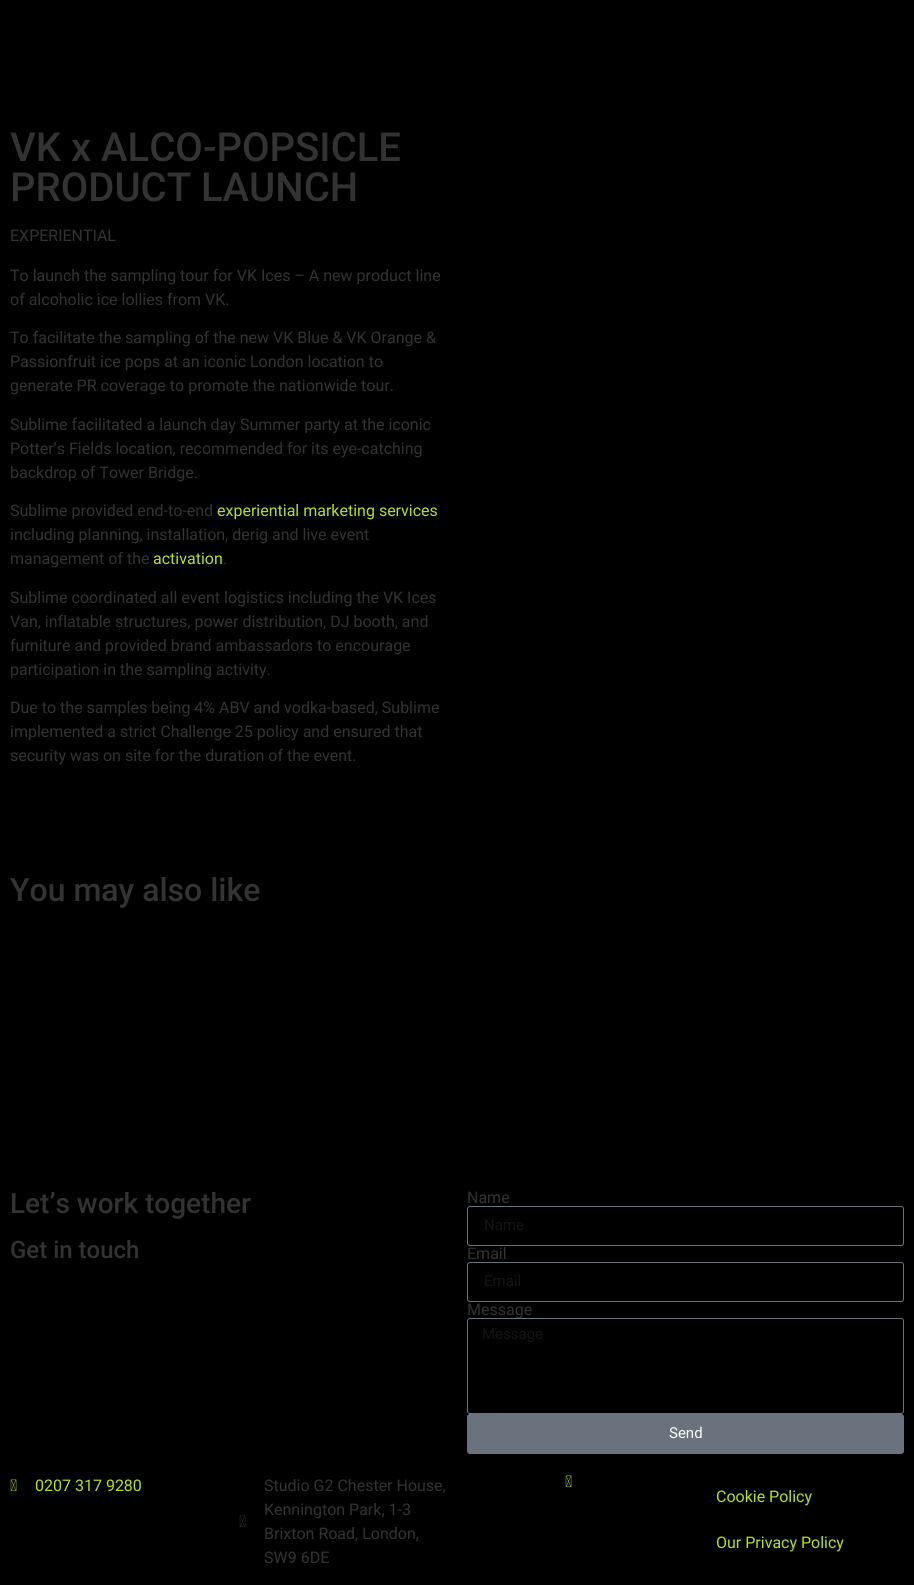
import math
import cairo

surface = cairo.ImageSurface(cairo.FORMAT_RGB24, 914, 1585)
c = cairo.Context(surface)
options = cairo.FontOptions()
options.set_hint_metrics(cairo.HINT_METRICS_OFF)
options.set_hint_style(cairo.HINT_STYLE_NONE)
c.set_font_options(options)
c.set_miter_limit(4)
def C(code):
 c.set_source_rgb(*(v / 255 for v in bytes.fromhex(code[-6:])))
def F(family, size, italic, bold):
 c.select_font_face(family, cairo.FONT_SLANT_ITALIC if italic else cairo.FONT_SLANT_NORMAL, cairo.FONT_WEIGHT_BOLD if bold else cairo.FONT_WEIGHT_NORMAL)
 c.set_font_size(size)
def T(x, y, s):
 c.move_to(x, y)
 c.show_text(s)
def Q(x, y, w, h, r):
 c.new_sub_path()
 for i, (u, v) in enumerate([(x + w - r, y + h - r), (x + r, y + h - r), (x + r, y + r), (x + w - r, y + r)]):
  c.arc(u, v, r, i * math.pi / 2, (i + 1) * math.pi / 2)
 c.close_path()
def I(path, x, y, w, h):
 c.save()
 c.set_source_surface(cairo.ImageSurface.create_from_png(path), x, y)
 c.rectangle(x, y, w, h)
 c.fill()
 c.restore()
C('000000')
c.paint()
F('Roboto Medium',40,0,0)
C('333333')
T(10,161,'VK x ALCO-POPSICLE')
T(10,201,'PRODUCT LAUNCH')
F('Roboto',16,0,0)
T(10,241,'EXPERIENTIAL')
T(10,281,'To launch the sampling tour for VK Ices – A new product line')
T(10,305,'of alcoholic ice lollies from VK.')
T(10,343,'To facilitate the sampling of the new VK Blue & VK Orange &')
T(10,367,'Passionfruit ice pops at an iconic London location to')
T(10,391,'generate PR coverage to promote the nationwide tour.')
T(10,430,'Sublime facilitated a launch day Summer party at the iconic')
T(10,454,'Potter’s Fields location, recommended for its eye-catching')
T(10,478,'backdrop of Tower Bridge.')
T(10,516,'Sublime provided end-to-end')
C('b4e31b')
T(217,516,'experiential marketing services')
C('333333')
T(10,540,'including planning, installation, derig and live event')
T(10,564,'management of the')
C('b4e31b')
T(153,564,'activation')
C('333333')
T(223,564,'.')
T(10,603,'Sublime coordinated all event logistics including the VK Ices')
T(10,627,'Van, inflatable structures, power distribution, DJ booth, and')
T(10,651,'furniture and provided brand ambassadors to encourage')
T(10,675,'participation in the sampling activity.')
T(10,713,'Due to the samples being 4% ABV and vodka-based, Sublime')
T(10,737,'implemented a strict Challenge 25 policy and ensured that')
T(10,761,'security was on site for the duration of the event.')
F('Roboto Medium',32,0,0)
T(10,901,'You may also like')
F('Roboto Medium',28,0,0)
T(10,1213,'Let’s work together')
F('Roboto Medium',24,0,0)
T(10,1258,'Get in touch')
F('Roboto',16,0,0)
T(467,1203,'Name')
Q(467.5,1206.5,436,39,2.5)
C('69727d')
c.set_line_width(1)
c.stroke()
F('Roboto',15,0,0)
C('131416')
T(484,1230,'Name')
F('Roboto',16,0,0)
C('333333')
T(467,1259,'Email')
Q(467.5,1262.5,436,39,2.5)
C('69727d')
c.stroke()
F('Roboto',15,0,0)
C('131416')
T(484,1286,'Email')
F('Roboto',16,0,0)
C('333333')
T(467,1315,'Message')
Q(467.5,1318.5,436,95,2.5)
C('69727d')
c.stroke()
F('Roboto',15,0,0)
C('131416')
T(482,1339,'Message')
C('69727d')
Q(467,1414,437,40,3)
c.fill()
C('ffffff')
T(669,1438,'Send')
I('1.png',10,1479,7,12)
F('Roboto',16,0,0)
C('b4e31b')
T(35,1491,'0207 317 9280')
I('2.png',239,1515,7,12)
C('333333')
T(264,1491,'Studio G2 Chester House,')
T(264,1515,'Kennington Park, 1-3')
T(264,1539,'Brixton Road, London,')
T(264,1563,'SW9 6DE')
I('1.png',565,1475,7,12)
C('b4e31b')
T(716,1502,'Cookie Policy')
T(716,1548,'Our Privacy Policy')
surface.write_to_png('o.png')
